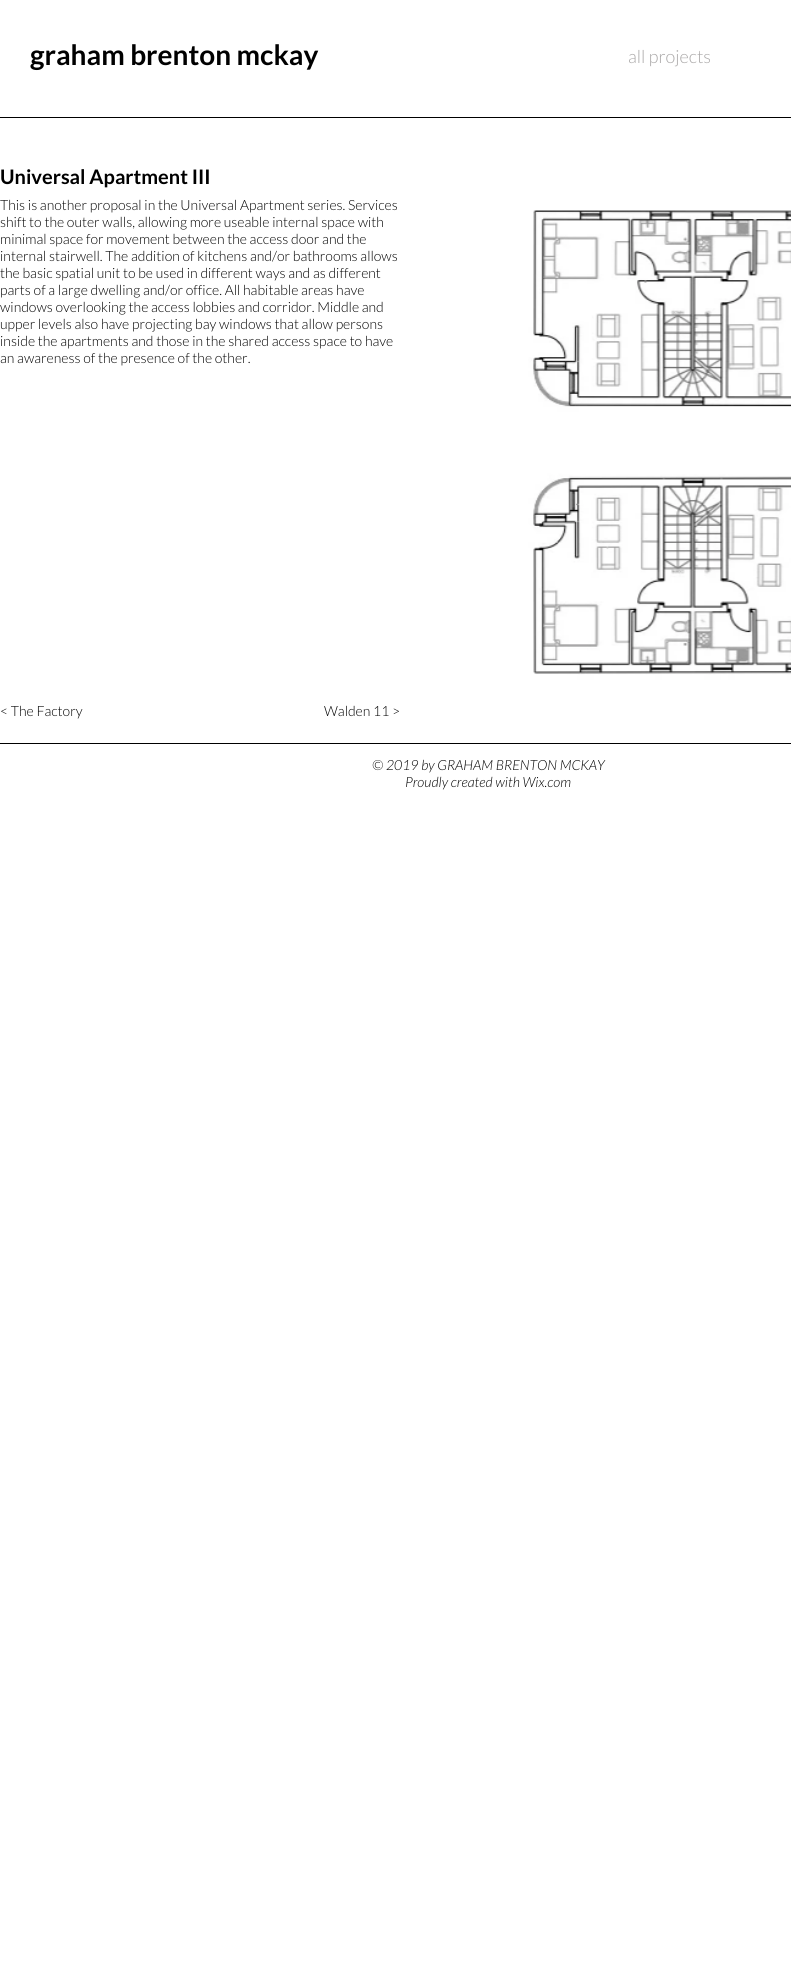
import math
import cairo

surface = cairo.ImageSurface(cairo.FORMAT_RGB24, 791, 1963)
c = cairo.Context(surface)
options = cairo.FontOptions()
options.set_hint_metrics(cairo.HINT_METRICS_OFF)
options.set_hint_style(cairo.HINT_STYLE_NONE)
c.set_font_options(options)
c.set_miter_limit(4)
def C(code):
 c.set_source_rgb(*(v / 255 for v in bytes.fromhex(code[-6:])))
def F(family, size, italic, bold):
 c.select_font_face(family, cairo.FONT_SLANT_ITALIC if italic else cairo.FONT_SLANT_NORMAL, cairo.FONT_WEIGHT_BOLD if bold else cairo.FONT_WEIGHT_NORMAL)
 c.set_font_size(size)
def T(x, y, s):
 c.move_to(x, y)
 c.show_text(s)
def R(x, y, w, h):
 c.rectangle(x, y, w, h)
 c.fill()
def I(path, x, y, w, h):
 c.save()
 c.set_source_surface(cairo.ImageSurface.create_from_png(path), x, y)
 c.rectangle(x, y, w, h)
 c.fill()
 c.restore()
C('ffffff')
c.paint()
F('Lato',28,0,1)
C('000000')
T(30,65,'graham brenton mckay')
F('Lato Light',18,0,0)
C('aaa8a8')
T(628,63,'all projects')
C('000000')
R(0,117,791,1)
F('Lato',20,0,1)
T(0,184,'Universal Apartment III')
F('Lato Light',14,0,0)
T(0,210,'This is another proposal in the Universal Apartment series. Services')
T(0,227,'shift to the outer walls, allowing more useable internal space with')
T(0,244,'minimal space for movement between the access door and the')
T(0,261,'internal stairwell. The addition of kitchens and/or bathrooms allows')
T(0,278,'the basic spatial unit to be used in different ways and as different')
T(0,295,'parts of a large dwelling and/or office. All habitable areas have')
T(0,312,'windows overlooking the access lobbies and corridor. Middle and')
T(0,329,'upper levels also have projecting bay windows that allow persons')
T(0,346,'inside the apartments and those in the shared access space to have')
T(0,363,'an awareness of the presence of the other.')
I('1.png',460,191,331,507)
T(0,716,'< The Factory')
T(324,716,'Walden 11 >')
R(0,743,791,1)
F('Lato Light',14,1,0)
T(372,770,'© 2019 by GRAHAM BRENTON MCKAY')
T(405,787,'Proudly created with Wix.com')
surface.write_to_png('o.png')
